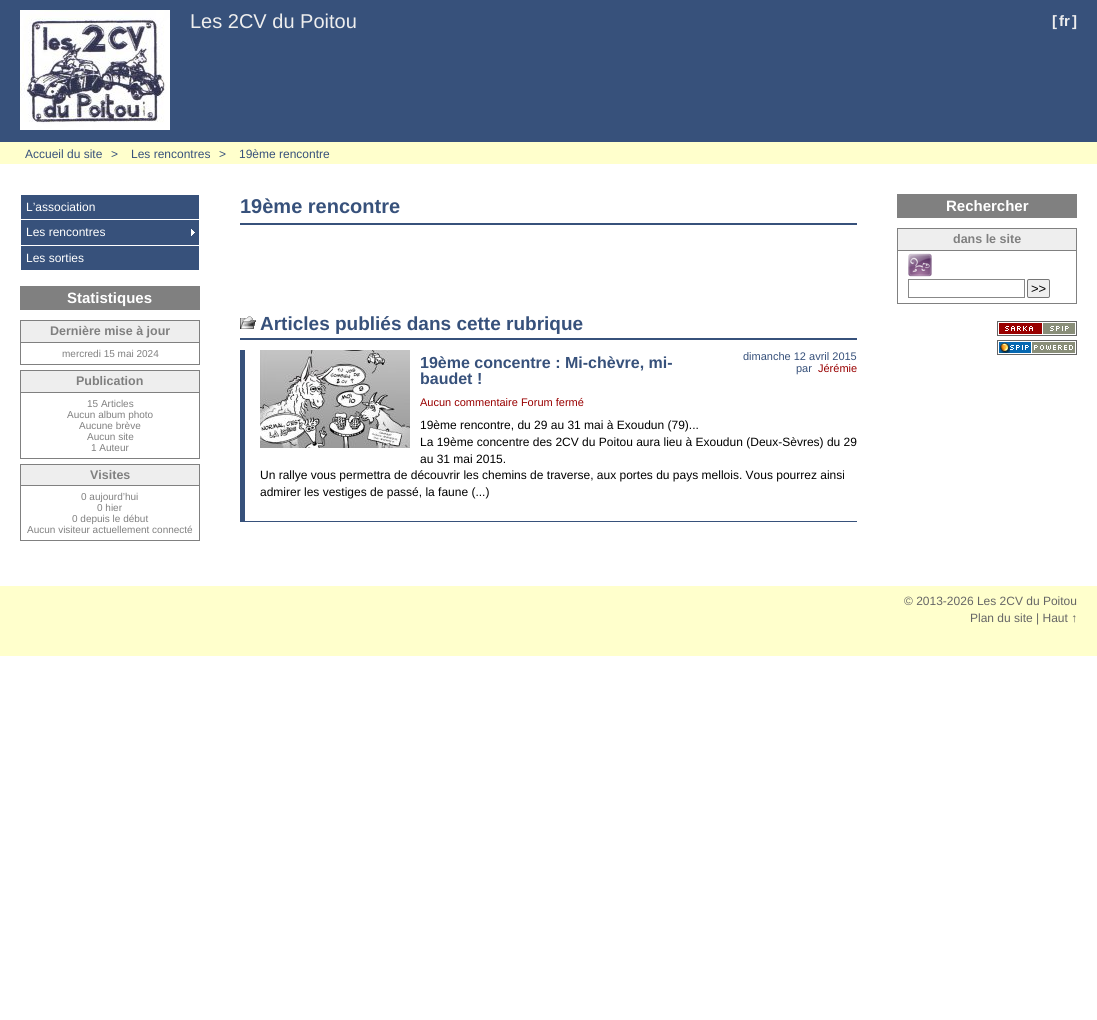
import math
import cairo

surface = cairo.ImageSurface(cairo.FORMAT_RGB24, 1097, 1020)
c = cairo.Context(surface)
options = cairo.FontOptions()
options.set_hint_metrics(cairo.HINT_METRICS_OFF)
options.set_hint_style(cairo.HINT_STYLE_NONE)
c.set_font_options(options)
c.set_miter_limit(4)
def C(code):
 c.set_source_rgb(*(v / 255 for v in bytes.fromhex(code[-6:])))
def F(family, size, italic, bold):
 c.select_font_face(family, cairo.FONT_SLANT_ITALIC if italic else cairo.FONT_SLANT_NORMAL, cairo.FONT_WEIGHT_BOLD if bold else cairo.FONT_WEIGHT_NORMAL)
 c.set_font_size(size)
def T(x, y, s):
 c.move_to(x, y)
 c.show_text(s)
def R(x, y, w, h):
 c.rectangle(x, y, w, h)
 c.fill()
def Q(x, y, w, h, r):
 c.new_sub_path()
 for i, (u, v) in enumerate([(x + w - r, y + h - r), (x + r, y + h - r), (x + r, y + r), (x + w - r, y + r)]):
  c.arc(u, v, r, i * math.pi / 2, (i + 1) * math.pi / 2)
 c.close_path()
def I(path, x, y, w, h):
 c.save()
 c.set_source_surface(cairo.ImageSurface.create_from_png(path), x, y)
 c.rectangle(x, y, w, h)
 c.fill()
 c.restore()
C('ffffff')
c.paint()
C('37517b')
R(0,0,1097,142)
I('1.png',20,10,150,120)
F('Liberation Sans',20,0,0)
C('eeeeee')
T(190,28,'Les 2CV du Poitou')
F('Liberation Sans',15,0,1)
T(1052,26,'[')
T(1059,26,'fr')
T(1072,26,']')
C('ffffcc')
R(0,142,1097,22)
F('Liberation Sans',12,0,0)
C('37517b')
T(25,158,'Accueil du site')
T(111,158,'>')
T(131,158,'Les rencontres')
T(219,158,'>')
T(239,158,'19ème rencontre')
R(21,195,178,75)
C('ffffff')
R(21,219,178,1)
T(26,211,'L’association')
R(21,245,178,1)
I('2.png',191,229,4,7)
T(26,236,'Les rencontres')
T(26,262,'Les sorties')
C('808080')
R(20,286,180,24)
F('Liberation Sans',15,0,1)
C('ffffff')
T(67,303,'Statistiques')
c.rectangle(20.5,320.5,179,44)
C('808080')
c.set_line_width(1)
c.stroke()
C('eeeeee')
R(21,321,178,21)
C('808080')
R(21,342,178,1)
F('Liberation Sans',12.5,0,1)
T(50,335,'Dernière mise à jour')
F('Liberation Sans',10,0,0)
T(62,357,'mercredi 15 mai 2024')
c.rectangle(20.5,370.5,179,88)
c.stroke()
C('eeeeee')
R(21,371,178,21)
C('808080')
R(21,392,178,1)
F('Liberation Sans',12.5,0,1)
T(76,385,'Publication')
F('Liberation Sans',10,0,0)
T(87,407,'15 Articles')
T(67,418,'Aucun album photo')
T(79,429,'Aucune brève')
T(87,440,'Aucun site')
T(91,451,'1 Auteur')
c.rectangle(20.5,464.5,179,76)
c.stroke()
C('eeeeee')
R(21,465,178,20)
C('808080')
R(21,485,178,1)
F('Liberation Sans',12.5,0,1)
T(90,479,'Visites')
F('Liberation Sans',10,0,0)
T(81,500,'0 aujourd’hui')
T(97,511,'0 hier')
T(72,522,'0 depuis le début')
T(27,533,'Aucun visiteur actuellement connecté')
C('37517b')
R(240,223,617,2)
F('Liberation Sans',20,0,1)
T(240,213,'19ème rencontre')
I('3.png',240,316,16,13)
R(240,338,617,2)
F('Liberation Sans',19,0,1)
T(260,330,'Articles publiés dans cette rubrique')
R(240,521,617,1)
R(240,350,5,172)
I('4.png',260,350,150,98)
F('Liberation Sans',16,0,1)
T(420,368,'19ème concentre : Mi-chèvre, mi-')
T(420,384,'baudet !')
F('Liberation Sans',11,0,0)
T(743,360,'dimanche 12 avril 2015')
T(796,372,'par')
C('990000')
T(818,372,'Jérémie')
T(420,406,'Aucun commentaire Forum fermé')
F('Liberation Sans',12,0,0)
C('000000')
T(420,429,'19ème rencontre, du 29 au 31 mai à Exoudun (79)...')
T(420,446,'La 19ème concentre des 2CV du Poitou aura lieu à Exoudun (Deux-Sèvres) du 29')
T(420,463,'au 31 mai 2015.')
T(260,479,'Un rallye vous permettra de découvrir les chemins de traverse, aux portes du pays mellois. Vous pourrez ainsi')
T(260,496,'admirer les vestiges de passé, la faune (...)')
C('808080')
R(897,194,180,24)
F('Liberation Sans',15,0,1)
C('ffffff')
T(946,211,'Rechercher')
c.rectangle(897.5,228.5,179,75)
C('808080')
c.stroke()
C('eeeeee')
R(898,229,178,21)
C('808080')
R(898,250,178,1)
F('Liberation Sans',12.5,0,1)
T(953,243,'dans le site')
I('5.png',908,253,24,24)
c.rectangle(908.5,279.5,116,18)
C('888888')
c.stroke()
C('efefef')
Q(1027.5,279.5,22,18,1.5)
c.fill_preserve()
C('767676')
c.stroke()
F('Liberation Sans',13,0,0)
C('000000')
T(1031,293,'>>')
I('6.png',997,321,80,15)
I('7.png',997,340,80,15)
C('ffffcc')
R(0,586,1097,70)
F('Liberation Sans',12,0,0)
C('666666')
T(904,605,'© 2013-2026 Les 2CV du Poitou')
T(970,622,'Plan du site | Haut ↑')
surface.write_to_png('o.png')
